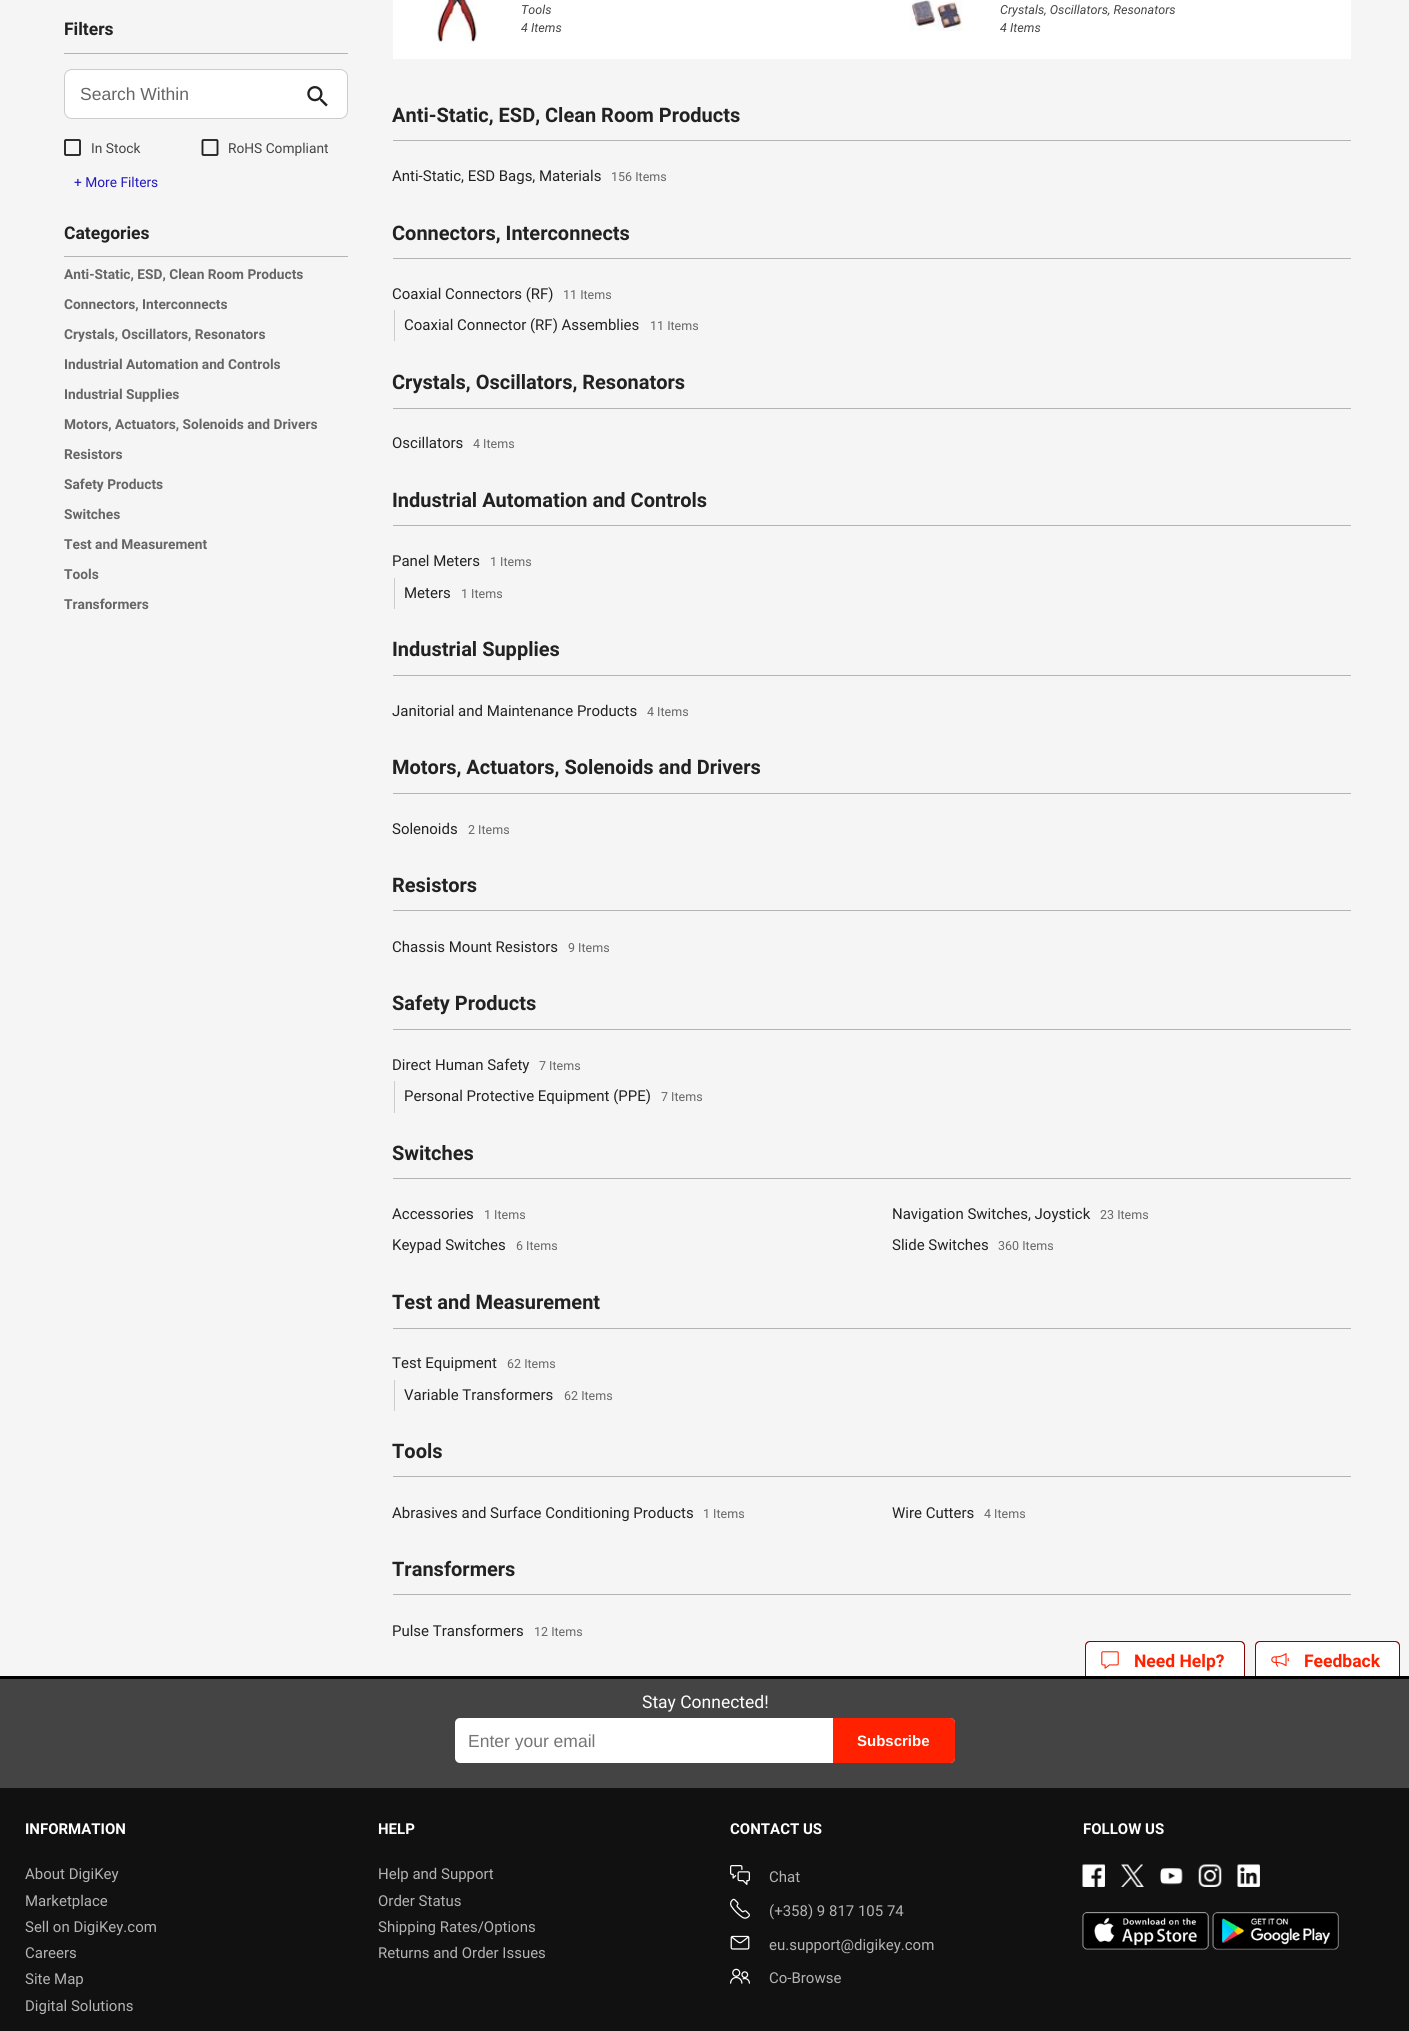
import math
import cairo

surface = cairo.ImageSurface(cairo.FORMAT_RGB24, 1409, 2031)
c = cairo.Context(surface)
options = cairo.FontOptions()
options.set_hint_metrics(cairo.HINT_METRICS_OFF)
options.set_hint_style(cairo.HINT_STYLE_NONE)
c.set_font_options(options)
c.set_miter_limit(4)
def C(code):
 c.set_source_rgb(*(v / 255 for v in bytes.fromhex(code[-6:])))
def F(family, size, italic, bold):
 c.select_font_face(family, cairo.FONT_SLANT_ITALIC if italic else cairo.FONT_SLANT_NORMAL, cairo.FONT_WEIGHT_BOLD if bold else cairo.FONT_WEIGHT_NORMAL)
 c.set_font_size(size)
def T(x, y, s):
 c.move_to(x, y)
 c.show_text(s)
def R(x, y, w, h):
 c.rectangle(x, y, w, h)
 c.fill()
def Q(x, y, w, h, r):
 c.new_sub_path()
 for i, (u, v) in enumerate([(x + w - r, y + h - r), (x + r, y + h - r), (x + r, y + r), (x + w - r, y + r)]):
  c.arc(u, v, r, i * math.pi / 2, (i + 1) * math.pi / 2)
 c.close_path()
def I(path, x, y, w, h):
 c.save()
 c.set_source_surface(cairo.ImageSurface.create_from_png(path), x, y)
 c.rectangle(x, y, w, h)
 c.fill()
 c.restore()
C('f5f5f5')
c.paint()
F('Roboto',17.5,0,1)
C('222222')
T(64,35,'Filters')
C('b4b4b4')
R(64,53,284,1)
C('ffffff')
Q(64.5,69.5,283,49,7.5)
c.fill_preserve()
C('cccccc')
c.set_line_width(1)
c.stroke()
F('Liberation Sans',17.5,0,0)
C('666666')
T(80,100,'Search Within')
I('1.png',307,86,21,21)
I('2.png',64,139,17,17)
F('Roboto',13.75,0,0)
C('444444')
T(91,153,'In Stock')
I('3.png',201,139,18,17)
T(228,153,'RoHS Compliant')
C('221abb')
T(74,187,'+ More Filters')
F('Roboto',17.5,0,1)
C('222222')
T(64,239,'Categories')
C('b4b4b4')
R(64,256,284,1)
F('Roboto',13.75,0,1)
C('666666')
T(64,279,'Anti-Static, ESD, Clean Room Products')
T(64,309,'Connectors, Interconnects')
T(64,339,'Crystals, Oscillators, Resonators')
T(64,369,'Industrial Automation and Controls')
T(64,399,'Industrial Supplies')
T(64,429,'Motors, Actuators, Solenoids and Drivers')
T(64,459,'Resistors')
T(64,489,'Safety Products')
T(64,519,'Switches')
T(64,549,'Test and Measurement')
T(64,579,'Tools')
T(64,609,'Transformers')
C('ffffff')
R(393,0,958,59)
I('4.png',437,0,40,44)
F('Roboto',12.5,1,0)
C('444444')
T(521,14,'Tools')
T(521,32,'4 Items')
I('5.png',910,0,53,31)
T(1000,14,'Crystals, Oscillators, Resonators')
T(1000,32,'4 Items')
F('Roboto',20,0,1)
C('222222')
T(392,122,'Anti-Static, ESD, Clean Room Products')
C('b4b4b4')
R(393,140,958,1)
F('Roboto',15,0,0)
C('222222')
T(392,181,'Anti-Static, ESD Bags, Materials')
F('Roboto',12.5,0,0)
C('666666')
T(611,181,'156 Items')
F('Roboto',20,0,1)
C('222222')
T(392,240,'Connectors, Interconnects')
C('b4b4b4')
R(393,258,958,1)
F('Roboto',15,0,0)
C('222222')
T(392,299,'Coaxial Connectors (RF)')
F('Roboto',12.5,0,0)
C('666666')
T(563,299,'11 Items')
C('cccccc')
R(394,310,1,31)
F('Roboto',15,0,0)
C('222222')
T(404,330,'Coaxial Connector (RF) Assemblies')
F('Roboto',12.5,0,0)
C('666666')
T(650,330,'11 Items')
F('Roboto',20,0,1)
C('222222')
T(392,389,'Crystals, Oscillators, Resonators')
C('b4b4b4')
R(393,408,958,1)
F('Roboto',15,0,0)
C('222222')
T(392,448,'Oscillators')
F('Roboto',12.5,0,0)
C('666666')
T(473,448,'4 Items')
F('Roboto',20,0,1)
C('222222')
T(392,507,'Industrial Automation and Controls')
C('b4b4b4')
R(393,525,958,1)
F('Roboto',15,0,0)
C('222222')
T(392,566,'Panel Meters')
F('Roboto',12.5,0,0)
C('666666')
T(490,566,'1 Items')
C('cccccc')
R(394,578,1,31)
F('Roboto',15,0,0)
C('222222')
T(404,598,'Meters')
F('Roboto',12.5,0,0)
C('666666')
T(461,598,'1 Items')
F('Roboto',20,0,1)
C('222222')
T(392,656,'Industrial Supplies')
C('b4b4b4')
R(393,675,958,1)
F('Roboto',15,0,0)
C('222222')
T(392,716,'Janitorial and Maintenance Products')
F('Roboto',12.5,0,0)
C('666666')
T(647,716,'4 Items')
F('Roboto',20,0,1)
C('222222')
T(392,774,'Motors, Actuators, Solenoids and Drivers')
C('b4b4b4')
R(393,793,958,1)
F('Roboto',15,0,0)
C('222222')
T(392,834,'Solenoids')
F('Roboto',12.5,0,0)
C('666666')
T(468,834,'2 Items')
F('Roboto',20,0,1)
C('222222')
T(392,892,'Resistors')
C('b4b4b4')
R(393,910,958,1)
F('Roboto',15,0,0)
C('222222')
T(392,952,'Chassis Mount Resistors')
F('Roboto',12.5,0,0)
C('666666')
T(568,952,'9 Items')
F('Roboto',20,0,1)
C('222222')
T(392,1010,'Safety Products')
C('b4b4b4')
R(393,1029,958,1)
F('Roboto',15,0,0)
C('222222')
T(392,1070,'Direct Human Safety')
F('Roboto',12.5,0,0)
C('666666')
T(539,1070,'7 Items')
C('cccccc')
R(394,1081,1,32)
F('Roboto',15,0,0)
C('222222')
T(404,1101,'Personal Protective Equipment (PPE)')
F('Roboto',12.5,0,0)
C('666666')
T(661,1101,'7 Items')
F('Roboto',20,0,1)
C('222222')
T(392,1160,'Switches')
C('b4b4b4')
R(393,1178,958,1)
F('Roboto',15,0,0)
C('222222')
T(392,1219,'Accessories')
F('Roboto',12.5,0,0)
C('666666')
T(484,1219,'1 Items')
F('Roboto',15,0,0)
C('222222')
T(892,1219,'Navigation Switches, Joystick')
F('Roboto',12.5,0,0)
C('666666')
T(1100,1219,'23 Items')
F('Roboto',15,0,0)
C('222222')
T(392,1250,'Keypad Switches')
F('Roboto',12.5,0,0)
C('666666')
T(516,1250,'6 Items')
F('Roboto',15,0,0)
C('222222')
T(892,1250,'Slide Switches')
F('Roboto',12.5,0,0)
C('666666')
T(998,1250,'360 Items')
F('Roboto',20,0,1)
C('222222')
T(392,1309,'Test and Measurement')
C('b4b4b4')
R(393,1328,958,1)
F('Roboto',15,0,0)
C('222222')
T(392,1368,'Test Equipment')
F('Roboto',12.5,0,0)
C('666666')
T(507,1368,'62 Items')
C('cccccc')
R(394,1380,1,31)
F('Roboto',15,0,0)
C('222222')
T(404,1400,'Variable Transformers')
F('Roboto',12.5,0,0)
C('666666')
T(564,1400,'62 Items')
F('Roboto',20,0,1)
C('222222')
T(392,1458,'Tools')
C('b4b4b4')
R(393,1476,958,1)
F('Roboto',15,0,0)
C('222222')
T(392,1518,'Abrasives and Surface Conditioning Products')
F('Roboto',12.5,0,0)
C('666666')
T(703,1518,'1 Items')
F('Roboto',15,0,0)
C('222222')
T(892,1518,'Wire Cutters')
F('Roboto',12.5,0,0)
C('666666')
T(984,1518,'4 Items')
F('Roboto',20,0,1)
C('222222')
T(392,1576,'Transformers')
C('b4b4b4')
R(393,1594,958,1)
F('Roboto',15,0,0)
C('222222')
T(392,1636,'Pulse Transformers')
F('Roboto',12.5,0,0)
C('666666')
T(534,1636,'12 Items')
C('111111')
R(0,1788,1409,243)
C('000000')
R(0,1676,1409,3)
C('ffffff')
c.new_path()
c.move_to(1090,1641)
c.line_to(1240,1641)
c.curve_to(1243,1641,1245,1643,1245,1646)
c.line_to(1245,1676)
c.line_to(1085,1676)
c.line_to(1085,1646)
c.curve_to(1085,1643,1087,1641,1090,1641)
c.close_path()
c.fill()
C('8b0000')
c.set_fill_rule(cairo.FILL_RULE_EVEN_ODD)
c.new_path()
c.move_to(1090,1641)
c.line_to(1240,1641)
c.curve_to(1243,1641,1245,1643,1245,1646)
c.line_to(1245,1676)
c.line_to(1085,1676)
c.line_to(1085,1646)
c.curve_to(1085,1643,1087,1641,1090,1641)
c.close_path()
c.move_to(1090,1642)
c.line_to(1240,1642)
c.curve_to(1242,1642,1244,1644,1244,1646)
c.line_to(1244,1676)
c.line_to(1086,1676)
c.line_to(1086,1646)
c.curve_to(1086,1644,1088,1642,1090,1642)
c.close_path()
c.fill()
I('6.png',1101,1651,18,18)
F('Roboto',17.5,0,1)
C('ff2100')
T(1134,1667,'Need Help?')
C('ffffff')
c.new_path()
c.move_to(1260,1641)
c.line_to(1395,1641)
c.curve_to(1398,1641,1400,1643,1400,1646)
c.line_to(1400,1676)
c.line_to(1255,1676)
c.line_to(1255,1646)
c.curve_to(1255,1643,1257,1641,1260,1641)
c.close_path()
c.fill()
C('8b0000')
c.new_path()
c.move_to(1260,1641)
c.line_to(1395,1641)
c.curve_to(1398,1641,1400,1643,1400,1646)
c.line_to(1400,1676)
c.line_to(1255,1676)
c.line_to(1255,1646)
c.curve_to(1255,1643,1257,1641,1260,1641)
c.close_path()
c.move_to(1260,1642)
c.line_to(1395,1642)
c.curve_to(1397,1642,1399,1644,1399,1646)
c.line_to(1399,1676)
c.line_to(1256,1676)
c.line_to(1256,1646)
c.curve_to(1256,1644,1258,1642,1260,1642)
c.close_path()
c.fill()
I('7.png',1271,1653,18,14)
C('ff2100')
T(1304,1667,'Feedback')
C('444444')
R(0,1679,1409,109)
F('Roboto',17.5,0,0)
C('ffffff')
T(642,1708,'Stay Connected!')
Q(455,1718,500,45,5)
c.fill()
c.save()
c.set_fill_rule(cairo.FILL_RULE_WINDING)
c.rectangle(468,1730,387,20)
c.clip()
F('Liberation Sans',17.5,0,0)
C('757575')
T(468,1747,'Enter your email')
c.restore()
C('ff2100')
c.new_path()
c.move_to(833,1718)
c.line_to(950,1718)
c.curve_to(953,1718,955,1720,955,1723)
c.line_to(955,1758)
c.curve_to(955,1761,953,1763,950,1763)
c.line_to(833,1763)
c.close_path()
c.fill()
F('Liberation Sans',15,0,1)
C('ffffff')
T(857,1746,'Subscribe')
F('Roboto',15,0,1)
T(25,1834,'INFORMATION')
F('Roboto',15,0,0)
C('b4b4b4')
T(25,1879,'About DigiKey')
T(25,1906,'Marketplace')
T(25,1932,'Sell on DigiKey.com')
T(25,1958,'Careers')
T(25,1984,'Site Map')
T(25,2011,'Digital Solutions')
F('Roboto',15,0,1)
C('ffffff')
T(378,1834,'HELP')
F('Roboto',15,0,0)
C('b4b4b4')
T(378,1879,'Help and Support')
T(378,1906,'Order Status')
T(378,1932,'Shipping Rates/Options')
T(378,1958,'Returns and Order Issues')
F('Roboto',15,0,1)
C('ffffff')
T(730,1834,'CONTACT US')
I('8.png',730,1865,20,20)
F('Roboto',15,0,0)
C('b4b4b4')
T(769,1882,'Chat')
I('9.png',730,1898,20,21)
T(769,1916,'(+358) 9 817 105 74')
I('10.png',730,1935,20,15)
T(769,1950,'eu.support@digikey.com')
I('11.png',730,1968,20,16)
T(769,1983,'Co-Browse')
F('Roboto',15,0,1)
C('ffffff')
T(1083,1834,'FOLLOW US')
I('12.png',1082,1864,23,23)
I('13.png',1121,1864,23,23)
I('14.png',1160,1868,23,17)
I('15.png',1198,1864,24,23)
I('16.png',1237,1864,23,23)
I('17.png',1082,1912,127,38)
I('18.png',1212,1912,127,38)
surface.write_to_png('o.png')
